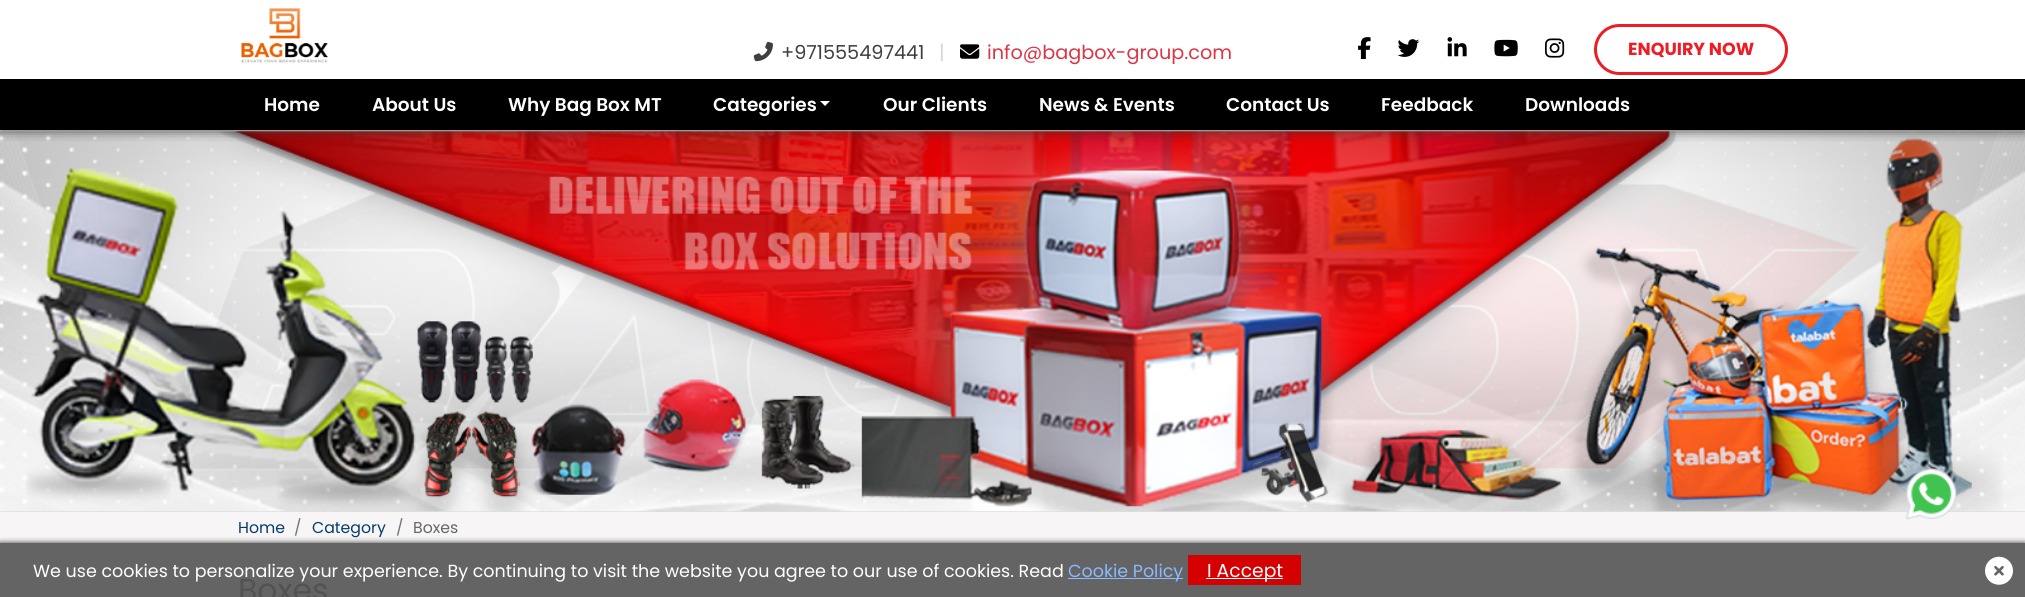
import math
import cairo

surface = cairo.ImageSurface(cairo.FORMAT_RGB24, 2025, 597)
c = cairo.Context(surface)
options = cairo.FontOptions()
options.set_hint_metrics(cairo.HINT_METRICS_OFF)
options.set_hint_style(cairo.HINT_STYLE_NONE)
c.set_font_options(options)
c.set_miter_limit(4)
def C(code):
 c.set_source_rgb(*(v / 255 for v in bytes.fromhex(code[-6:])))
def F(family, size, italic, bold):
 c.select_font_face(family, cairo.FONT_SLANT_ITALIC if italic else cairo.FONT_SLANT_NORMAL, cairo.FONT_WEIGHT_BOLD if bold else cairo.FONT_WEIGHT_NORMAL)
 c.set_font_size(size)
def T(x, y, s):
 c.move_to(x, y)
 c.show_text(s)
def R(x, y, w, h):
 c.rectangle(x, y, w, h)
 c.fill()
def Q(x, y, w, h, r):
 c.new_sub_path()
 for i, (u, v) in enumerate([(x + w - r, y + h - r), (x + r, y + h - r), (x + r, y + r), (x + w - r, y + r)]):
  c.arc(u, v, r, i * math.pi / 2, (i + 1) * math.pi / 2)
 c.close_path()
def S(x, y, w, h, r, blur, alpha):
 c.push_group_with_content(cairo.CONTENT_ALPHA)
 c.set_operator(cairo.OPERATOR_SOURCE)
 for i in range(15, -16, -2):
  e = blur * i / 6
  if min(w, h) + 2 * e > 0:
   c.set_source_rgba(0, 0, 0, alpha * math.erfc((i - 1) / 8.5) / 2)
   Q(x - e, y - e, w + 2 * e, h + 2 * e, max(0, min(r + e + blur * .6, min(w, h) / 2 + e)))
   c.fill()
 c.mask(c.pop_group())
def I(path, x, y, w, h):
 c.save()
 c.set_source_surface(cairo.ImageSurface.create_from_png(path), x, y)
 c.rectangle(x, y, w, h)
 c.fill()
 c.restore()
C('ffffff')
c.paint()
C('646464')
R(0,543,2025,54)
C('dddddd')
R(0,511,2025,1)
I('9.png',0,131,2025,381)
c.save()
c.rectangle(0,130,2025,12)
c.clip()
C('333333')
S(0,0,2025,130,0,6,1)
c.restore()
I('1.png',241,8,88,55)
I('2.png',753,41,20,21)
F('Poppins',19.25,0,0)
C('3f3f3f')
T(781,59,'+971555497441')
C('d7d7d7')
T(939,59,'|')
I('3.png',960,44,20,15)
C('dc3545')
T(987,59,'info@bagbox-group.com')
I('4.png',1358,37,13,22)
I('5.png',1397,39,23,18)
I('6.png',1447,37,20,20)
I('7.png',1494,39,24,18)
I('8.png',1545,38,20,20)
Q(1595.5,25.5,191,48,24)
C('ee1c25')
c.set_line_width(3)
c.stroke()
F('Poppins',17.5,0,1)
T(1628,55,'ENQUIRY NOW')
C('000000')
R(0,79,2025,51)
F('Poppins SemiBold',18.5,0,0)
C('ffffff')
T(264,111,'Home')
T(372,111,'About Us')
T(508,111,'Why Bag Box MT')
T(713,111,'Categories')
c.new_path()
c.move_to(820,101)
c.line_to(830,101)
c.line_to(825,106)
c.close_path()
c.fill()
T(883,111,'Our Clients')
T(1039,111,'News & Events')
T(1226,111,'Contact Us')
T(1381,111,'Feedback')
T(1525,111,'Downloads')
C('f7f5f5')
R(0,512,2025,31)
I('10.png',1906,468,51,52)
F('Poppins',15.75,0,0)
C('053d6b')
T(238,533,'Home')
C('6c757d')
T(294,533,'/')
C('053d6b')
T(312,533,'Category')
C('6c757d')
T(396,533,'/')
C('666666')
T(413,533,'Boxes')
c.save()
c.rectangle(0,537,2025,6)
c.clip()
C('333333')
S(0,543,2025,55,0,3,1)
c.restore()
F('Poppins',17.5,0,0)
C('ffffff')
T(33,577,'We use cookies to personalize your experience. By continuing to visit the website you agree to our use of cookies. Read')
C('8ab9ff')
R(1068,578,115,1)
T(1068,577,'Cookie Policy')
C('d40001')
R(1188,555,113,30)
C('ffffff')
R(1206,578,77,1)
F('Poppins',18.75,0,0)
T(1207,577,'I Accept')
I('11.png',1985,556,28,29)
F('Poppins',31.5,0,0)
C('525252')
T(238,601,'Boxes')
surface.write_to_png('o.png')
